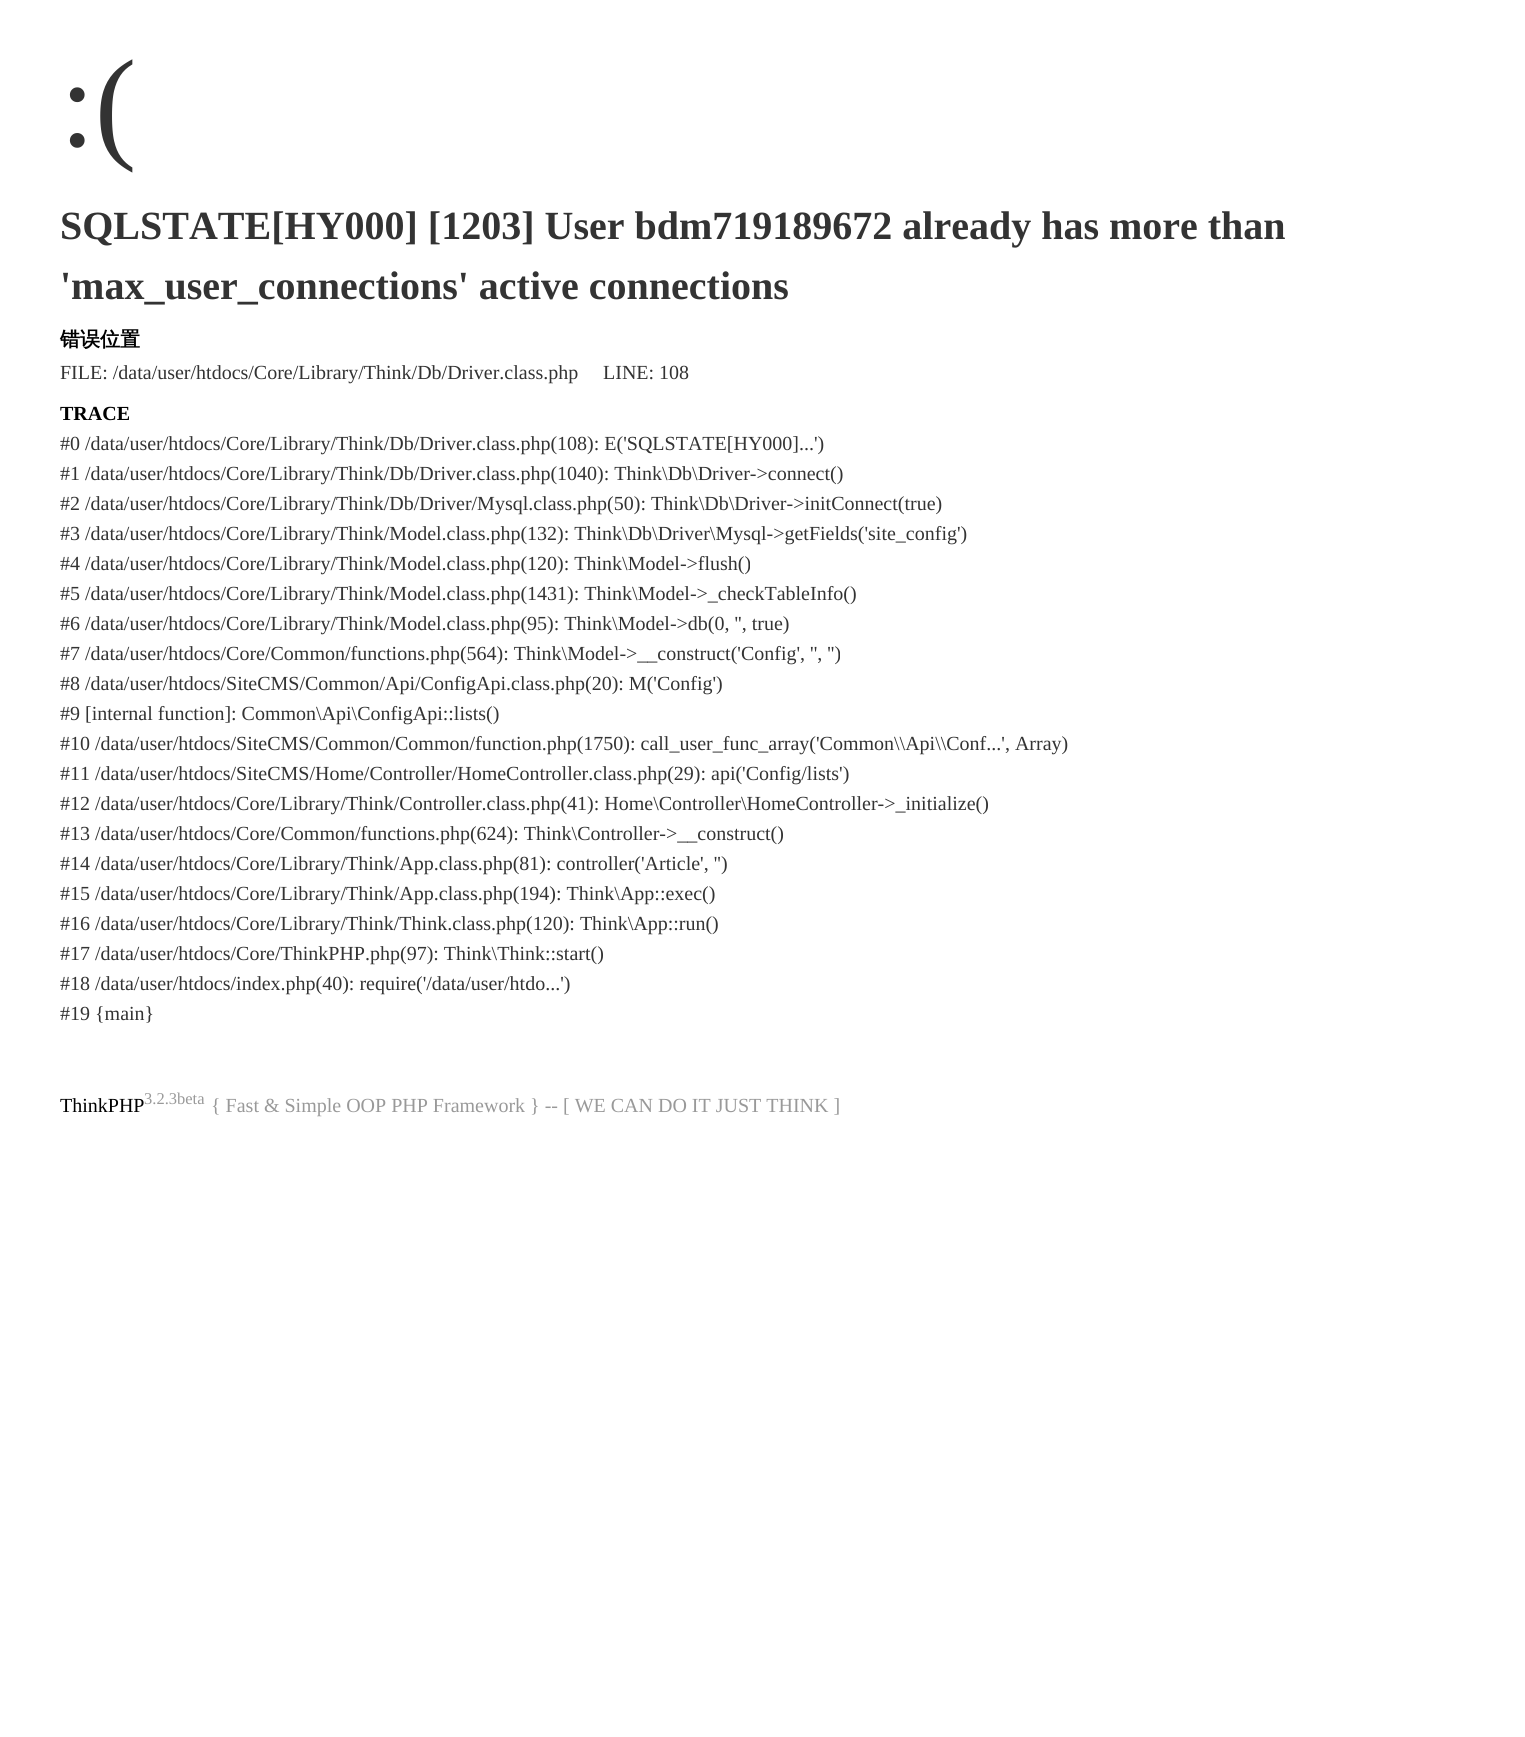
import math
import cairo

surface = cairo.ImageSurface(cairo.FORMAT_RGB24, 1525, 1737)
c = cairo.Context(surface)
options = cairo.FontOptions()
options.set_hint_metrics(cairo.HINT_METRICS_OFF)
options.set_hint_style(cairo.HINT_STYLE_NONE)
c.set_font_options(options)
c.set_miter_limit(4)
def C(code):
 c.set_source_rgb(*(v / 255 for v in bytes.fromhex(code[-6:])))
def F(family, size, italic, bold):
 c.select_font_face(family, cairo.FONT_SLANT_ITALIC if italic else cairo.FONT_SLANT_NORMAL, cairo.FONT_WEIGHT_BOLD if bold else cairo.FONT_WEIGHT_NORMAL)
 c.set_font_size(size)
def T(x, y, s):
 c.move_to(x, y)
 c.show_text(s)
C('ffffff')
c.paint()
F('Liberation Serif',125,0,0)
C('333333')
T(60,146,':(')
F('Liberation Serif',40,0,1)
T(60,239,'SQLSTATE[HY000] [1203] User bdm719189672 already has more than')
T(60,299,'\'max_user_connections\' active connections')
F('WenQuanYi Zen Hei',20,0,1)
C('000000')
T(60,346,'错误位置')
F('Liberation Serif',20,0,0)
C('333333')
T(60,379,'FILE: /data/user/htdocs/Core/Library/Think/Db/Driver.class.php')
T(603,379,'LINE: 108')
F('Liberation Serif',20,0,1)
C('000000')
T(60,420,'TRACE')
F('Liberation Serif',20,0,0)
C('333333')
T(60,450,'#0 /data/user/htdocs/Core/Library/Think/Db/Driver.class.php(108): E(\'SQLSTATE[HY000]...\')')
T(60,480,'#1 /data/user/htdocs/Core/Library/Think/Db/Driver.class.php(1040): Think\\Db\\Driver->connect()')
T(60,510,'#2 /data/user/htdocs/Core/Library/Think/Db/Driver/Mysql.class.php(50): Think\\Db\\Driver->initConnect(true)')
T(60,540,'#3 /data/user/htdocs/Core/Library/Think/Model.class.php(132): Think\\Db\\Driver\\Mysql->getFields(\'site_config\')')
T(60,570,'#4 /data/user/htdocs/Core/Library/Think/Model.class.php(120): Think\\Model->flush()')
T(60,600,'#5 /data/user/htdocs/Core/Library/Think/Model.class.php(1431): Think\\Model->_checkTableInfo()')
T(60,630,'#6 /data/user/htdocs/Core/Library/Think/Model.class.php(95): Think\\Model->db(0, \'\', true)')
T(60,660,'#7 /data/user/htdocs/Core/Common/functions.php(564): Think\\Model->__construct(\'Config\', \'\', \'\')')
T(60,690,'#8 /data/user/htdocs/SiteCMS/Common/Api/ConfigApi.class.php(20): M(\'Config\')')
T(60,720,'#9 [internal function]: Common\\Api\\ConfigApi::lists()')
T(60,750,'#10 /data/user/htdocs/SiteCMS/Common/Common/function.php(1750): call_user_func_array(\'Common\\\\Api\\\\Conf...\', Array)')
T(60,780,'#11 /data/user/htdocs/SiteCMS/Home/Controller/HomeController.class.php(29): api(\'Config/lists\')')
T(60,810,'#12 /data/user/htdocs/Core/Library/Think/Controller.class.php(41): Home\\Controller\\HomeController->_initialize()')
T(60,840,'#13 /data/user/htdocs/Core/Common/functions.php(624): Think\\Controller->__construct()')
T(60,870,'#14 /data/user/htdocs/Core/Library/Think/App.class.php(81): controller(\'Article\', \'\')')
T(60,900,'#15 /data/user/htdocs/Core/Library/Think/App.class.php(194): Think\\App::exec()')
T(60,930,'#16 /data/user/htdocs/Core/Library/Think/Think.class.php(120): Think\\App::run()')
T(60,960,'#17 /data/user/htdocs/Core/ThinkPHP.php(97): Think\\Think::start()')
T(60,990,'#18 /data/user/htdocs/index.php(40): require(\'/data/user/htdo...\')')
T(60,1020,'#19 {main}')
C('000000')
T(60,1112,'ThinkPHP')
F('Liberation Serif',16.5,0,0)
C('999999')
T(144,1104,'3.2.3beta')
F('Liberation Serif',20,0,0)
T(211,1112,'{ Fast & Simple OOP PHP Framework } -- [ WE CAN DO IT JUST THINK ]')
surface.write_to_png('o.png')
